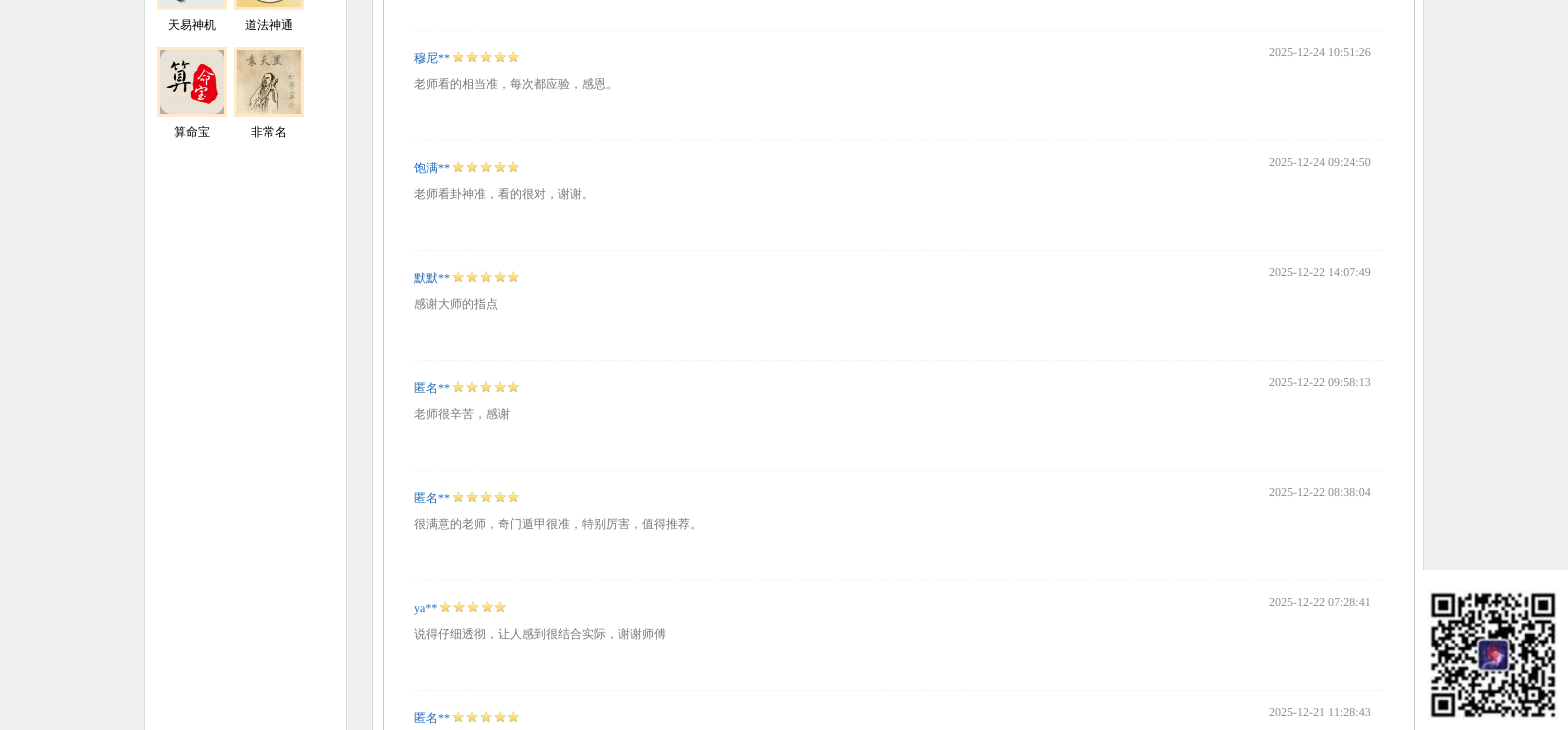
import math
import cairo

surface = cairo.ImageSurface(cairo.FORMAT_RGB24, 1568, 730)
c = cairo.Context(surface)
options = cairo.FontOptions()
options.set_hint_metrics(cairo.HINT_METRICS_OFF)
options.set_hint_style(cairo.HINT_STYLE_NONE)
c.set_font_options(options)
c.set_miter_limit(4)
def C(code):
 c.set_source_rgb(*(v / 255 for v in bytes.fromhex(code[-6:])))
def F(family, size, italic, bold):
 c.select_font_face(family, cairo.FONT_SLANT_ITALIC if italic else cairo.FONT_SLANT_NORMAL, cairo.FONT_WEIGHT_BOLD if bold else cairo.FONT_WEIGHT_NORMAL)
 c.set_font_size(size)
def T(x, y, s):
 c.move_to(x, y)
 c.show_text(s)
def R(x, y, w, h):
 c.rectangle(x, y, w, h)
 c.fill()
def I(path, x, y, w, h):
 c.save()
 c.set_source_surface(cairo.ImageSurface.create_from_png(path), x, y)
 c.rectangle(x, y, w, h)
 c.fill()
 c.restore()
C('f0f0f0')
c.paint()
C('ffffff')
c.rectangle(144.5,-.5,202,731)
c.fill_preserve()
C('d8d8d8')
c.set_line_width(1)
c.stroke()
c.rectangle(158.5,-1.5,67,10)
C('fee9c8')
c.set_line_width(3)
c.stroke()
I('1.png',160,0,64,7)
F('WenQuanYi Zen Hei Medium',12,0,0)
C('000000')
T(168,29,'天易神机')
c.rectangle(235.5,-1.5,67,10)
C('fee9c8')
c.stroke()
I('2.png',237,0,64,7)
C('000000')
T(245,29,'道法神通')
c.rectangle(158.5,48.5,67,67)
C('fee9c8')
c.stroke()
I('3.png',160,50,64,64)
C('000000')
T(174,136,'算命宝')
c.rectangle(235.5,48.5,67,67)
C('fee9c8')
c.stroke()
I('4.png',237,50,64,64)
C('000000')
T(251,136,'非常名')
C('ffffff')
c.rectangle(372.5,-.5,1051,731)
c.fill_preserve()
C('d8d8d8')
c.set_line_width(1)
c.stroke()
C('c8c8c8')
R(1414,0,1,730)
R(383,0,1,730)
c.new_path()
c.move_to(414,30.5)
c.line_to(1384,30.5)
C('f3f3f3')
c.set_dash([3,2.01])
c.stroke()
C('236aba')
T(414,62,'穆尼')
F('Liberation Serif',12,0,0)
T(438,62,'**')
I('5.png',453,51,66,11)
C('8b8b8b')
T(1269,56,'2025-12-24 10:51:26')
F('WenQuanYi Zen Hei Medium',12,0,0)
C('777777')
T(414,88,'老师看的相当准，每次都应验，感恩。')
c.new_path()
c.move_to(414,140.5)
c.line_to(1384,140.5)
C('f3f3f3')
c.stroke()
C('236aba')
T(414,172,'饱满')
F('Liberation Serif',12,0,0)
T(438,172,'**')
I('5.png',453,161,66,11)
C('8b8b8b')
T(1269,166,'2025-12-24 09:24:50')
F('WenQuanYi Zen Hei Medium',12,0,0)
C('777777')
T(414,198,'老师看卦神准，看的很对，谢谢。')
c.new_path()
c.move_to(414,250.5)
c.line_to(1384,250.5)
C('f3f3f3')
c.stroke()
C('236aba')
T(414,282,'默默')
F('Liberation Serif',12,0,0)
T(438,282,'**')
I('5.png',453,271,66,11)
C('8b8b8b')
T(1269,276,'2025-12-22 14:07:49')
F('WenQuanYi Zen Hei Medium',12,0,0)
C('777777')
T(414,308,'感谢大师的指点')
c.new_path()
c.move_to(414,360.5)
c.line_to(1384,360.5)
C('f3f3f3')
c.stroke()
C('236aba')
T(414,392,'匿名')
F('Liberation Serif',12,0,0)
T(438,392,'**')
I('5.png',453,381,66,11)
C('8b8b8b')
T(1269,386,'2025-12-22 09:58:13')
F('WenQuanYi Zen Hei Medium',12,0,0)
C('777777')
T(414,418,'老师很辛苦，感谢')
c.new_path()
c.move_to(414,470.5)
c.line_to(1384,470.5)
C('f3f3f3')
c.stroke()
C('236aba')
T(414,502,'匿名')
F('Liberation Serif',12,0,0)
T(438,502,'**')
I('5.png',453,491,66,11)
C('8b8b8b')
T(1269,496,'2025-12-22 08:38:04')
F('WenQuanYi Zen Hei Medium',12,0,0)
C('777777')
T(414,528,'很满意的老师，奇门遁甲很准，特别厉害，值得推荐。')
c.new_path()
c.move_to(414,580.5)
c.line_to(1384,580.5)
C('f3f3f3')
c.stroke()
F('Liberation Serif',12,0,0)
C('236aba')
T(414,612,'ya**')
I('5.png',440,601,66,11)
C('8b8b8b')
T(1269,606,'2025-12-22 07:28:41')
F('WenQuanYi Zen Hei Medium',12,0,0)
C('777777')
T(414,638,'说得仔细透彻，让人感到很结合实际，谢谢师傅')
c.new_path()
c.move_to(414,690.5)
c.line_to(1384,690.5)
C('f3f3f3')
c.stroke()
C('236aba')
T(414,722,'匿名')
F('Liberation Serif',12,0,0)
T(438,722,'**')
I('5.png',453,711,66,11)
C('8b8b8b')
T(1269,716,'2025-12-21 11:28:43')
C('ffffff')
R(1423,570,145,160)
I('6.png',1428,590,130,130)
surface.write_to_png('o.png')
